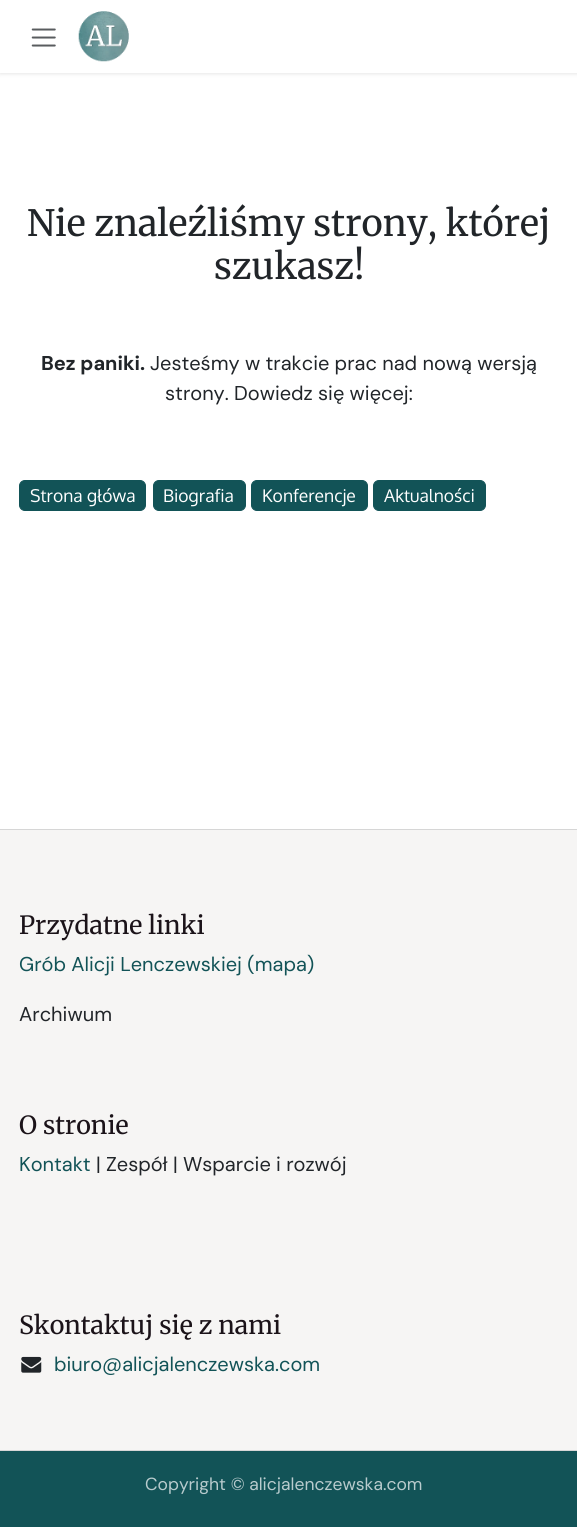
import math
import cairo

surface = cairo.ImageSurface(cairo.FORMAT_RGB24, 577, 1527)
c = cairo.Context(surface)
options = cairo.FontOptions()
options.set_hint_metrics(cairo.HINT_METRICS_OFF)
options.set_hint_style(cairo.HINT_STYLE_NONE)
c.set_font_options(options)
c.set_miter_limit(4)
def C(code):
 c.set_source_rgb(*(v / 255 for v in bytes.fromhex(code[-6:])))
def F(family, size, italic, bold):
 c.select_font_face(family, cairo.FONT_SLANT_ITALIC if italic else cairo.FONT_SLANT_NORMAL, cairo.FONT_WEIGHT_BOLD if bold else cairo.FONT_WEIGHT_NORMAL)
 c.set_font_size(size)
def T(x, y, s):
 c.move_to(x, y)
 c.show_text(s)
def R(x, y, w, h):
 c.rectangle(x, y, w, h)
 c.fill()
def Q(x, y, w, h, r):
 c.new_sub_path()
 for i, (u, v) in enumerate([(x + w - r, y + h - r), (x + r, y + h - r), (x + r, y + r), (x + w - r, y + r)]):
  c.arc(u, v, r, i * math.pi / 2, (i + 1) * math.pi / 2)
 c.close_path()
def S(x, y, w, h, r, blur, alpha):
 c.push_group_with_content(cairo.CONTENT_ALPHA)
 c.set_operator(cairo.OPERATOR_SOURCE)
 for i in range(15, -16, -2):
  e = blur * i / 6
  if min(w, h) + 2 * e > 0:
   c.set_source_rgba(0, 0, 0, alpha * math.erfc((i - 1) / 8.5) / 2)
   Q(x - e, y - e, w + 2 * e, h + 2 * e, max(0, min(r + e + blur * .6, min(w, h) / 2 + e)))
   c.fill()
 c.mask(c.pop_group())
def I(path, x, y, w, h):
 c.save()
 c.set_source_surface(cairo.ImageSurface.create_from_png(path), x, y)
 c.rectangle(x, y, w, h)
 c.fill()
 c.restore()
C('ffffff')
c.paint()
C('000000')
S(0,1,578,73,0,2,.1)
C('ffffff')
R(0,0,577,73)
I('1.png',31,28,25,19)
I('2.png',78,11,51,51)
F('Merriweather',36.2,0,0)
C('212529')
T(27,236,'Nie znaleźliśmy strony, której')
T(214,279,'szukasz!')
F('DM Sans',20,0,1)
T(41,370,'Bez paniki.')
F('DM Sans',20,0,0)
T(150,370,'Jesteśmy w trakcie prac nad nową wersją')
T(165,400,'strony. Dowiedz się więcej:')
C('125357')
Q(19.5,480.5,126,30,5.5)
c.fill_preserve()
c.set_line_width(1)
c.stroke()
F('Oxygen',17.5,0,0)
C('ffffff')
T(30,502,'Strona główa')
C('125357')
Q(153.5,480.5,92,30,5.5)
c.fill_preserve()
c.stroke()
C('ffffff')
T(163,502,'Biografia')
C('125357')
Q(251.5,480.5,116,30,5.5)
c.fill_preserve()
c.stroke()
C('ffffff')
T(262,502,'Konferencje')
C('125357')
Q(373.5,480.5,112,30,5.5)
c.fill_preserve()
c.stroke()
C('ffffff')
T(384,502,'Aktualności')
C('f6f5f4')
R(0,830,577,620)
C('d6d6d6')
R(0,829,577,1)
R(0,1450,577,1)
F('Merriweather',25,0,0)
C('1b1319')
T(19,934,'Przydatne linki')
F('DM Sans',20,0,0)
C('125357')
T(19,971,'Grób Alicji Lenczewskiej (mapa)')
C('212529')
T(19,1021,'Archiwum')
F('Merriweather',25,0,0)
C('1b1319')
T(19,1134,'O stronie')
F('DM Sans',20,0,0)
C('125357')
T(19,1171,'Kontakt')
C('212529')
T(96,1171,'| Zespół | Wsparcie i rozwój')
F('Merriweather',25,0,0)
C('1b1319')
T(19,1334,'Skontaktuj się z nami')
I('3.png',21,1356,21,17)
F('DM Sans',20,0,0)
C('125357')
T(54,1371,'biuro@alicjalenczewska.com')
R(0,1451,577,76)
F('DM Sans',17.5,0,0)
C('b8cbcd')
T(145,1490,'Copyright © alicjalenczewska.com')
surface.write_to_png('o.png')
